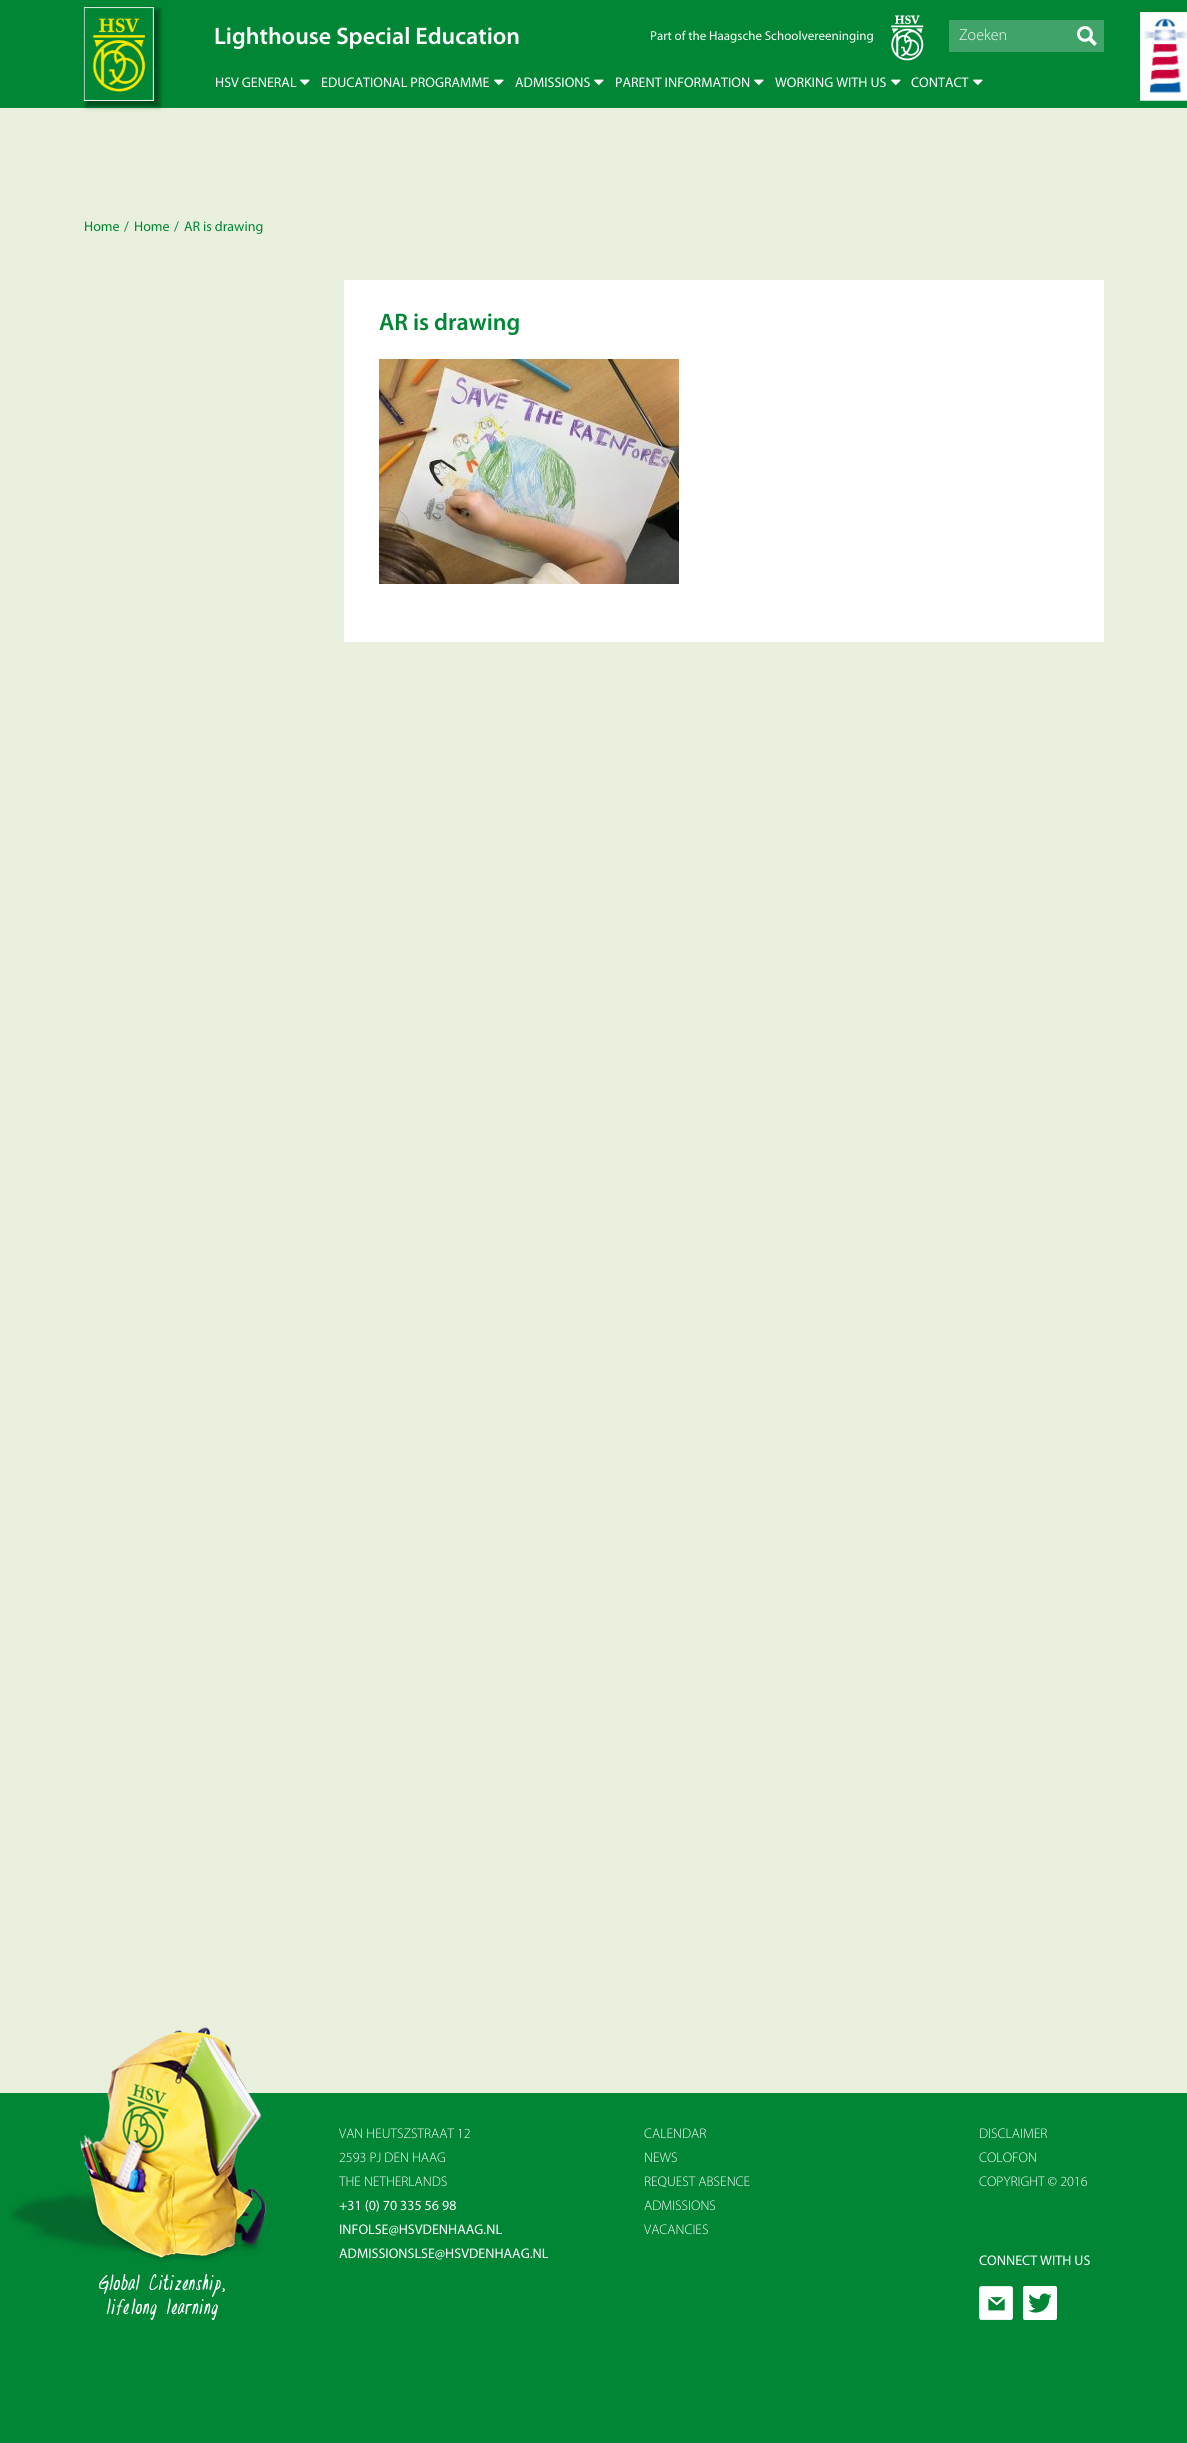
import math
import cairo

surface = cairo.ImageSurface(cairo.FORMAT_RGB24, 1187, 2443)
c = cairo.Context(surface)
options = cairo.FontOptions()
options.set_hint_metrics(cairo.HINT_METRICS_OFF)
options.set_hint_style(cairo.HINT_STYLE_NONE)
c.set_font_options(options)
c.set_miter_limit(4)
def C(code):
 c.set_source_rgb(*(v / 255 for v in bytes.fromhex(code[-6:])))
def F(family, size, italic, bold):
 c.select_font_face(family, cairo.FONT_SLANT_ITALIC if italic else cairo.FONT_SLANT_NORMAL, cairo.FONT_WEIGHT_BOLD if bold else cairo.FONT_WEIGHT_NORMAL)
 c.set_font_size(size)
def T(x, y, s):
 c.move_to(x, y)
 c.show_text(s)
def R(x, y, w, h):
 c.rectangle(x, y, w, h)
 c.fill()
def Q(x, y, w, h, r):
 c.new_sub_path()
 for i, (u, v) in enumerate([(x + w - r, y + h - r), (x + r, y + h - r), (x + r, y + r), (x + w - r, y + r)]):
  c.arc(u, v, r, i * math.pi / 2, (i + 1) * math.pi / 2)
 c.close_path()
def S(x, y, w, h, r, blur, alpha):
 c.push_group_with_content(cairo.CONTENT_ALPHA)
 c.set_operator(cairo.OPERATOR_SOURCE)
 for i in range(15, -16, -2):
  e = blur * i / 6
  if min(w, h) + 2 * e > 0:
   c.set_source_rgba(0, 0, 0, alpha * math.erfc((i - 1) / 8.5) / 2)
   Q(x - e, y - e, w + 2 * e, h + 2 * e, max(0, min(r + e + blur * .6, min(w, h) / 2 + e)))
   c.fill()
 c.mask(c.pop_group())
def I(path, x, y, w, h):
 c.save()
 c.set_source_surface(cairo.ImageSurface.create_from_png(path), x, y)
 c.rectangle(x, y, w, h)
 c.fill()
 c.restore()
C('e8efdc')
c.paint()
C('008635')
R(0,0,1187,108)
C('010101')
S(86,9,74,98,0,2,.4)
I('1.png',83,7,71,94)
F('Myriad SemiBold',24,0,0)
C('ffffff')
T(214,44,'Lighthouse Special Education')
F('Myriad',14,0,0)
T(215,87,'HSV GENERAL')
I('2.png',300,79,10,6)
T(321,87,'EDUCATIONAL PROGRAMME')
I('2.png',494,79,10,6)
T(515,87,'ADMISSIONS')
I('2.png',594,79,10,6)
T(615,87,'PARENT INFORMATION')
I('2.png',754,79,10,6)
T(775,87,'WORKING WITH US')
I('2.png',891,79,10,6)
T(911,87,'CONTACT')
I('2.png',973,79,10,6)
I('3.png',1140,12,47,89)
F('Myriad',13,0,0)
T(650,40,'Part of the Haagsche Schoolvereeninging')
I('4.png',891,15,33,46)
C('40a468')
R(949,20,155,32)
F('Myriad Light',16,0,0)
C('ffffff')
T(959,40,'Zoeken')
I('5.png',1077,26,20,20)
F('Myriad',14,0,0)
C('008635')
T(84,231,'Home')
T(124,231,'/')
T(134,231,'Home')
T(174,231,'/')
T(184,231,'AR is drawing')
C('ffffff')
R(344,280,760,362)
F('Myriad SemiBold',24,0,0)
C('008635')
T(379,330,'AR is drawing')
I('6.png',379,359,300,225)
R(0,2093,1187,350)
I('7.png',9,2027,257,293)
F('Myriad Light',14,0,0)
C('ffffff')
T(339,2138,'VAN HEUTSZSTRAAT 12')
T(339,2162,'2593 PJ DEN HAAG')
T(339,2186,'THE NETHERLANDS')
F('Myriad',14,0,0)
T(339,2210,'+31 (0) 70 335 56 98')
T(339,2234,'INFOLSE@HSVDENHAAG.NL')
T(339,2258,'ADMISSIONSLSE@HSVDENHAAG.NL')
F('Myriad Light',14,0,0)
T(644,2138,'CALENDAR')
T(644,2162,'NEWS')
T(644,2186,'REQUEST ABSENCE')
T(644,2210,'ADMISSIONS')
T(644,2234,'VACANCIES')
T(979,2138,'DISCLAIMER')
T(979,2162,'COLOFON')
T(979,2186,'COPYRIGHT © 2016')
F('Myriad',14,0,0)
T(979,2265,'CONNECT WITH US')
I('8.png',979,2286,34,34)
I('9.png',1023,2286,34,34)
surface.write_to_png('o.png')
